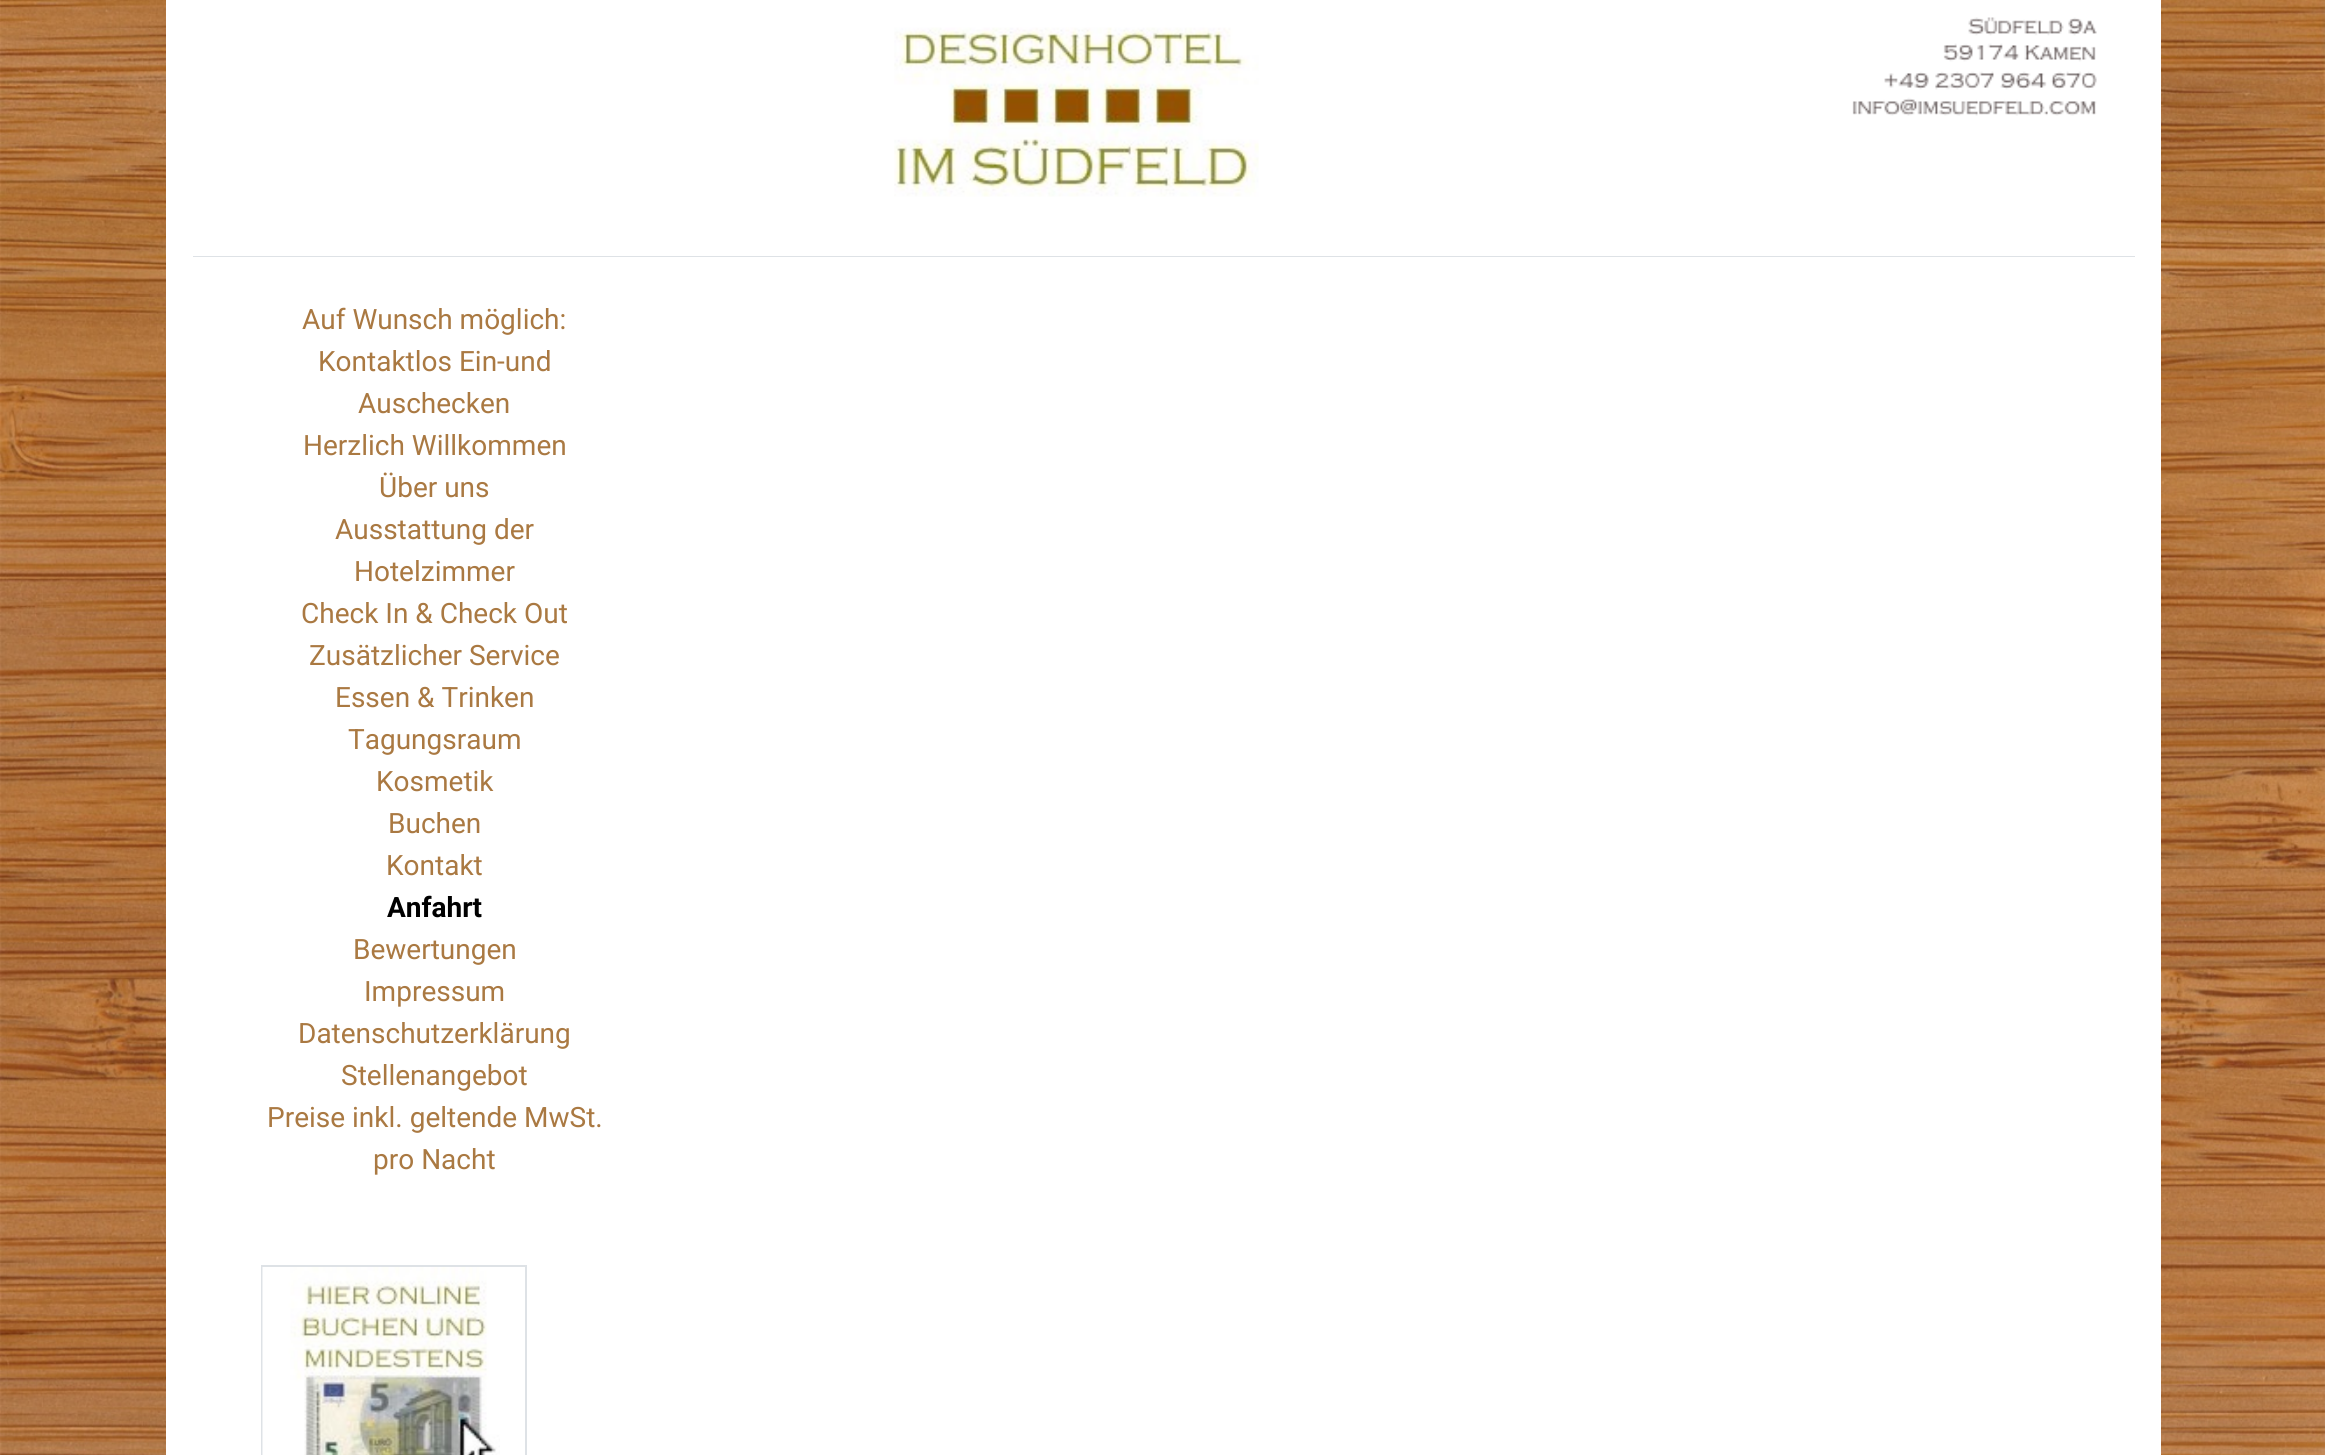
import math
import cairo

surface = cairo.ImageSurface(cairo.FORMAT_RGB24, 2325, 1455)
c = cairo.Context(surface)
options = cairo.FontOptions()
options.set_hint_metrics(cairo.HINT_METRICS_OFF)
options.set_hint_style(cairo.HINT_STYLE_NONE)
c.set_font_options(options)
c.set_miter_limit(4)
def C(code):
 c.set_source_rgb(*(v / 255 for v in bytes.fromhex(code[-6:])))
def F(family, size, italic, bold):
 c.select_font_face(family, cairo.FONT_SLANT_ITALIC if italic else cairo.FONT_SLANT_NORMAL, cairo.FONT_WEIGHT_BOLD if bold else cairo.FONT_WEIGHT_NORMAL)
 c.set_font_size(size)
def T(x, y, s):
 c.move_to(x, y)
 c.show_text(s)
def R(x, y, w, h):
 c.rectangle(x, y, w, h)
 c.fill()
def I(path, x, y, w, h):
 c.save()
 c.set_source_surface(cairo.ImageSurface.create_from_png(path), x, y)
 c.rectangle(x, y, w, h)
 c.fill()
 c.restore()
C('ffffff')
c.paint()
I('1.png',0,0,2325,1455)
C('ffffff')
R(166,0,1995,1455)
C('dee2e6')
R(193,256,1942,1)
I('2.png',894,27,365,170)
I('3.png',1852,17,245,99)
F('Roboto',28,0,0)
C('aa7942')
T(302,329,'Auf Wunsch möglich:')
T(318,371,'Kontaktlos Ein-und')
T(358,413,'Auschecken')
T(303,455,'Herzlich Willkommen')
T(379,497,'Über uns')
T(335,539,'Ausstattung der')
T(354,581,'Hotelzimmer')
T(301,623,'Check In & Check Out')
T(309,665,'Zusätzlicher Service')
T(335,707,'Essen & Trinken')
T(348,749,'Tagungsraum')
T(376,791,'Kosmetik')
T(388,833,'Buchen')
T(386,875,'Kontakt')
F('Roboto',28,0,1)
C('000000')
T(387,917,'Anfahrt')
F('Roboto',28,0,0)
C('aa7942')
T(353,959,'Bewertungen')
T(364,1001,'Impressum')
T(298,1043,'Datenschutzerklärung')
T(341,1085,'Stellenangebot')
T(267,1127,'Preise inkl. geltende MwSt.')
T(373,1169,'pro Nacht')
c.rectangle(262,1266,264,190)
C('dee2e6')
c.stroke()
I('4.png',262,1267,238,188)
surface.write_to_png('o.png')
